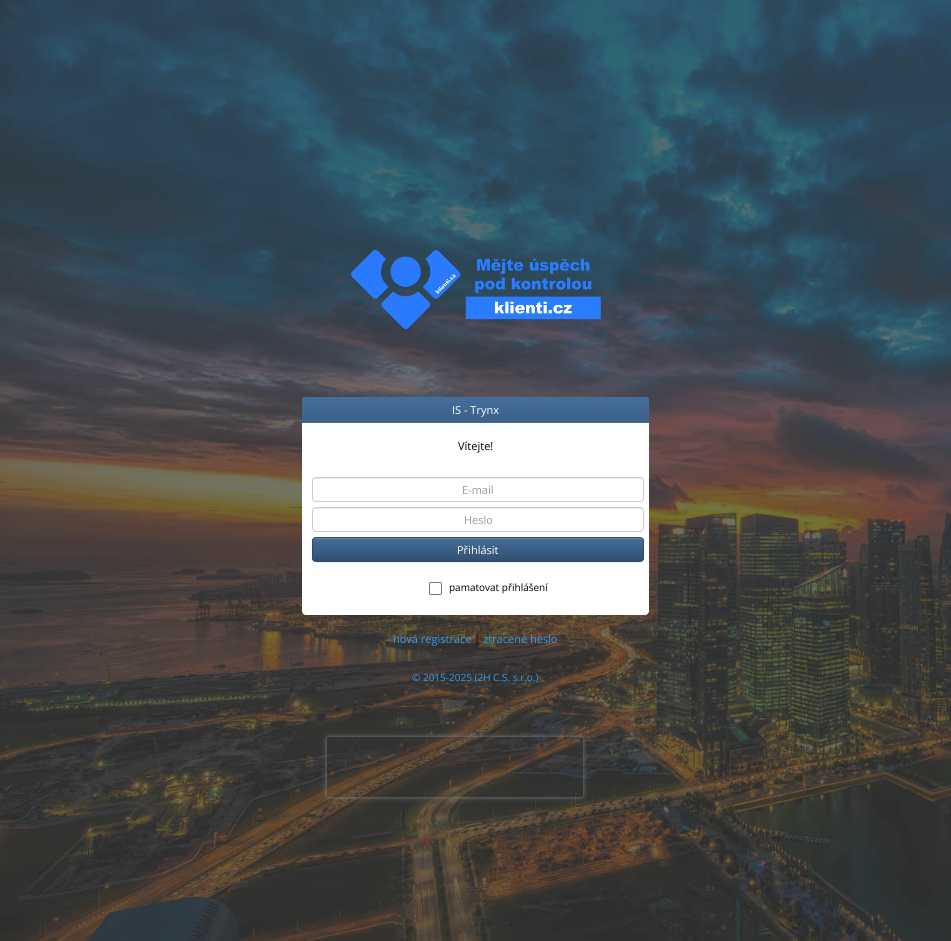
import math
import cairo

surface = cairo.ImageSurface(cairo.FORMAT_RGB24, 951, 941)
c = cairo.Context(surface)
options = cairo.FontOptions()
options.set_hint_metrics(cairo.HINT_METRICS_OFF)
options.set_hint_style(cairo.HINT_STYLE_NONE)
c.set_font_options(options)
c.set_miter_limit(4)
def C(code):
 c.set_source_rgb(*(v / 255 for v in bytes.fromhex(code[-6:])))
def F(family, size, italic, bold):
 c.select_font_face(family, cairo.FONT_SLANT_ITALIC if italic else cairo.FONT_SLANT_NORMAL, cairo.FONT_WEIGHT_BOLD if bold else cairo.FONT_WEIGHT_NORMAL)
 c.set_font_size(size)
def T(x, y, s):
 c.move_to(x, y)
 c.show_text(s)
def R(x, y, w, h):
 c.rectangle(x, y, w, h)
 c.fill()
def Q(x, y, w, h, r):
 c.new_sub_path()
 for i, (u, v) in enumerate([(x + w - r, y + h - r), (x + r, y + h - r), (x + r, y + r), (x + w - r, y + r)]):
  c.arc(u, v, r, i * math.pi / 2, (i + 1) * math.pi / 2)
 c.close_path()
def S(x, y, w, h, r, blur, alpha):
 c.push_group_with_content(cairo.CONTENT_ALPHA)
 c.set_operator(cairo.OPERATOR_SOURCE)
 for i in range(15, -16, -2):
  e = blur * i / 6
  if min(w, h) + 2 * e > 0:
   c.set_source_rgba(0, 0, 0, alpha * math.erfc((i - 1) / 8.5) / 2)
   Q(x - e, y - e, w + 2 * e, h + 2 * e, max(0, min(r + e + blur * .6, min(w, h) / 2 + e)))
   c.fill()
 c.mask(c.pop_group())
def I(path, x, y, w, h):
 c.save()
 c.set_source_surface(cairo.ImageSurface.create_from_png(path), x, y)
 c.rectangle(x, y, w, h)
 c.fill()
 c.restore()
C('ffffff')
c.paint()
I('1.png',0,0,951,941)
I('2.png',351,250,250,79)
C('ffffff')
Q(302,397,347,218,4)
c.fill()
C('446e9b')
c.new_path()
c.move_to(305,397)
c.line_to(646,397)
c.curve_to(647.5,397,649,398.5,649,400)
c.line_to(649,423)
c.line_to(302,423)
c.line_to(302,400)
c.curve_to(302,398.5,303.5,397,305,397)
c.close_path()
c.fill()
gradient = cairo.LinearGradient(476,397,476,422)
gradient.add_color_stop_rgba(0,0.267,0.431,0.608,1)
gradient.add_color_stop_rgba(1,0.235,0.38,0.537,1)
c.set_source(gradient)
c.new_path()
c.move_to(305,397)
c.line_to(646,397)
c.curve_to(647.5,397,649,398.5,649,400)
c.line_to(649,422)
c.line_to(302,422)
c.line_to(302,400)
c.curve_to(302,398.5,303.5,397,305,397)
c.close_path()
c.fill()
F('Open Sans',11,0,0)
C('ffffff')
T(452,414,'IS - Trynx')
C('000000')
T(458,450,'Vítejte!')
C('ececec')
c.new_path()
c.move_to(316,479)
c.line_to(640,479)
c.curve_to(642,479,643,480,643,482)
c.curve_to(643,480,642,478,640,478)
c.line_to(316,478)
c.curve_to(314,478,313,480,313,482)
c.curve_to(313,480,314,479,316,479)
c.close_path()
c.fill()
Q(312.5,477.5,331,24,3.5)
C('cccccc')
c.set_line_width(1)
c.stroke()
C('999999')
T(462,494,'E-mail')
C('ececec')
c.new_path()
c.move_to(316,509)
c.line_to(640,509)
c.curve_to(642,509,643,510,643,512)
c.curve_to(643,510,642,508,640,508)
c.line_to(316,508)
c.curve_to(314,508,313,510,313,512)
c.curve_to(313,510,314,509,316,509)
c.close_path()
c.fill()
Q(312.5,507.5,331,24,3.5)
C('cccccc')
c.stroke()
C('999999')
T(464,524,'Heslo')
C('000000')
S(312,538,332,25,4,.5,.07)
c.save()
Q(312,537,332,25,4)
c.clip()
gradient = cairo.LinearGradient(478,538,478,561)
gradient.add_color_stop_rgba(0,0.267,0.431,0.608,1)
gradient.add_color_stop_rgba(1,0.192,0.314,0.439,1)
c.set_source(gradient)
R(312,538,332,23)
c.restore()
C('6083a9')
c.new_path()
c.move_to(316,539)
c.line_to(640,539)
c.curve_to(642,539,643,540,643,542)
c.curve_to(643,540,642,538,640,538)
c.line_to(316,538)
c.curve_to(314,538,313,540,313,542)
c.curve_to(313,540,314,539,316,539)
c.close_path()
c.fill()
Q(312.5,537.5,331,24,3.5)
C('2e4b69')
c.stroke()
C('ffffff')
T(457,554,'Přihlásit')
c.save()
c.set_fill_rule(cairo.FILL_RULE_EVEN_ODD)
c.new_path()
c.move_to(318,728)
c.line_to(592,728)
c.line_to(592,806)
c.line_to(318,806)
c.close_path()
c.move_to(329,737)
c.line_to(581,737)
c.curve_to(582,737,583,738,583,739)
c.line_to(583,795)
c.curve_to(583,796,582,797,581,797)
c.line_to(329,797)
c.curve_to(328,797,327,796,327,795)
c.line_to(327,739)
c.curve_to(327,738,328,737,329,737)
c.close_path()
c.clip()
C('808080')
S(327,737,256,60,2,2.5,1)
c.restore()
Q(429.5,582.5,12,12,1.5)
C('767676')
c.stroke()
F('Open Sans',10,0,0)
C('000000')
T(449,591,'pamatovat přihlášení')
F('Open Sans',11,0,0)
C('3399f3')
T(393,643,'nová registrace')
C('000000')
T(474,643,'|')
C('3399f3')
T(483,643,'ztracené heslo')
F('Open Sans',10,0,0)
T(412,681,'© 2015-2025 (2H C.S. s.r.o.)')
surface.write_to_png('o.png')
